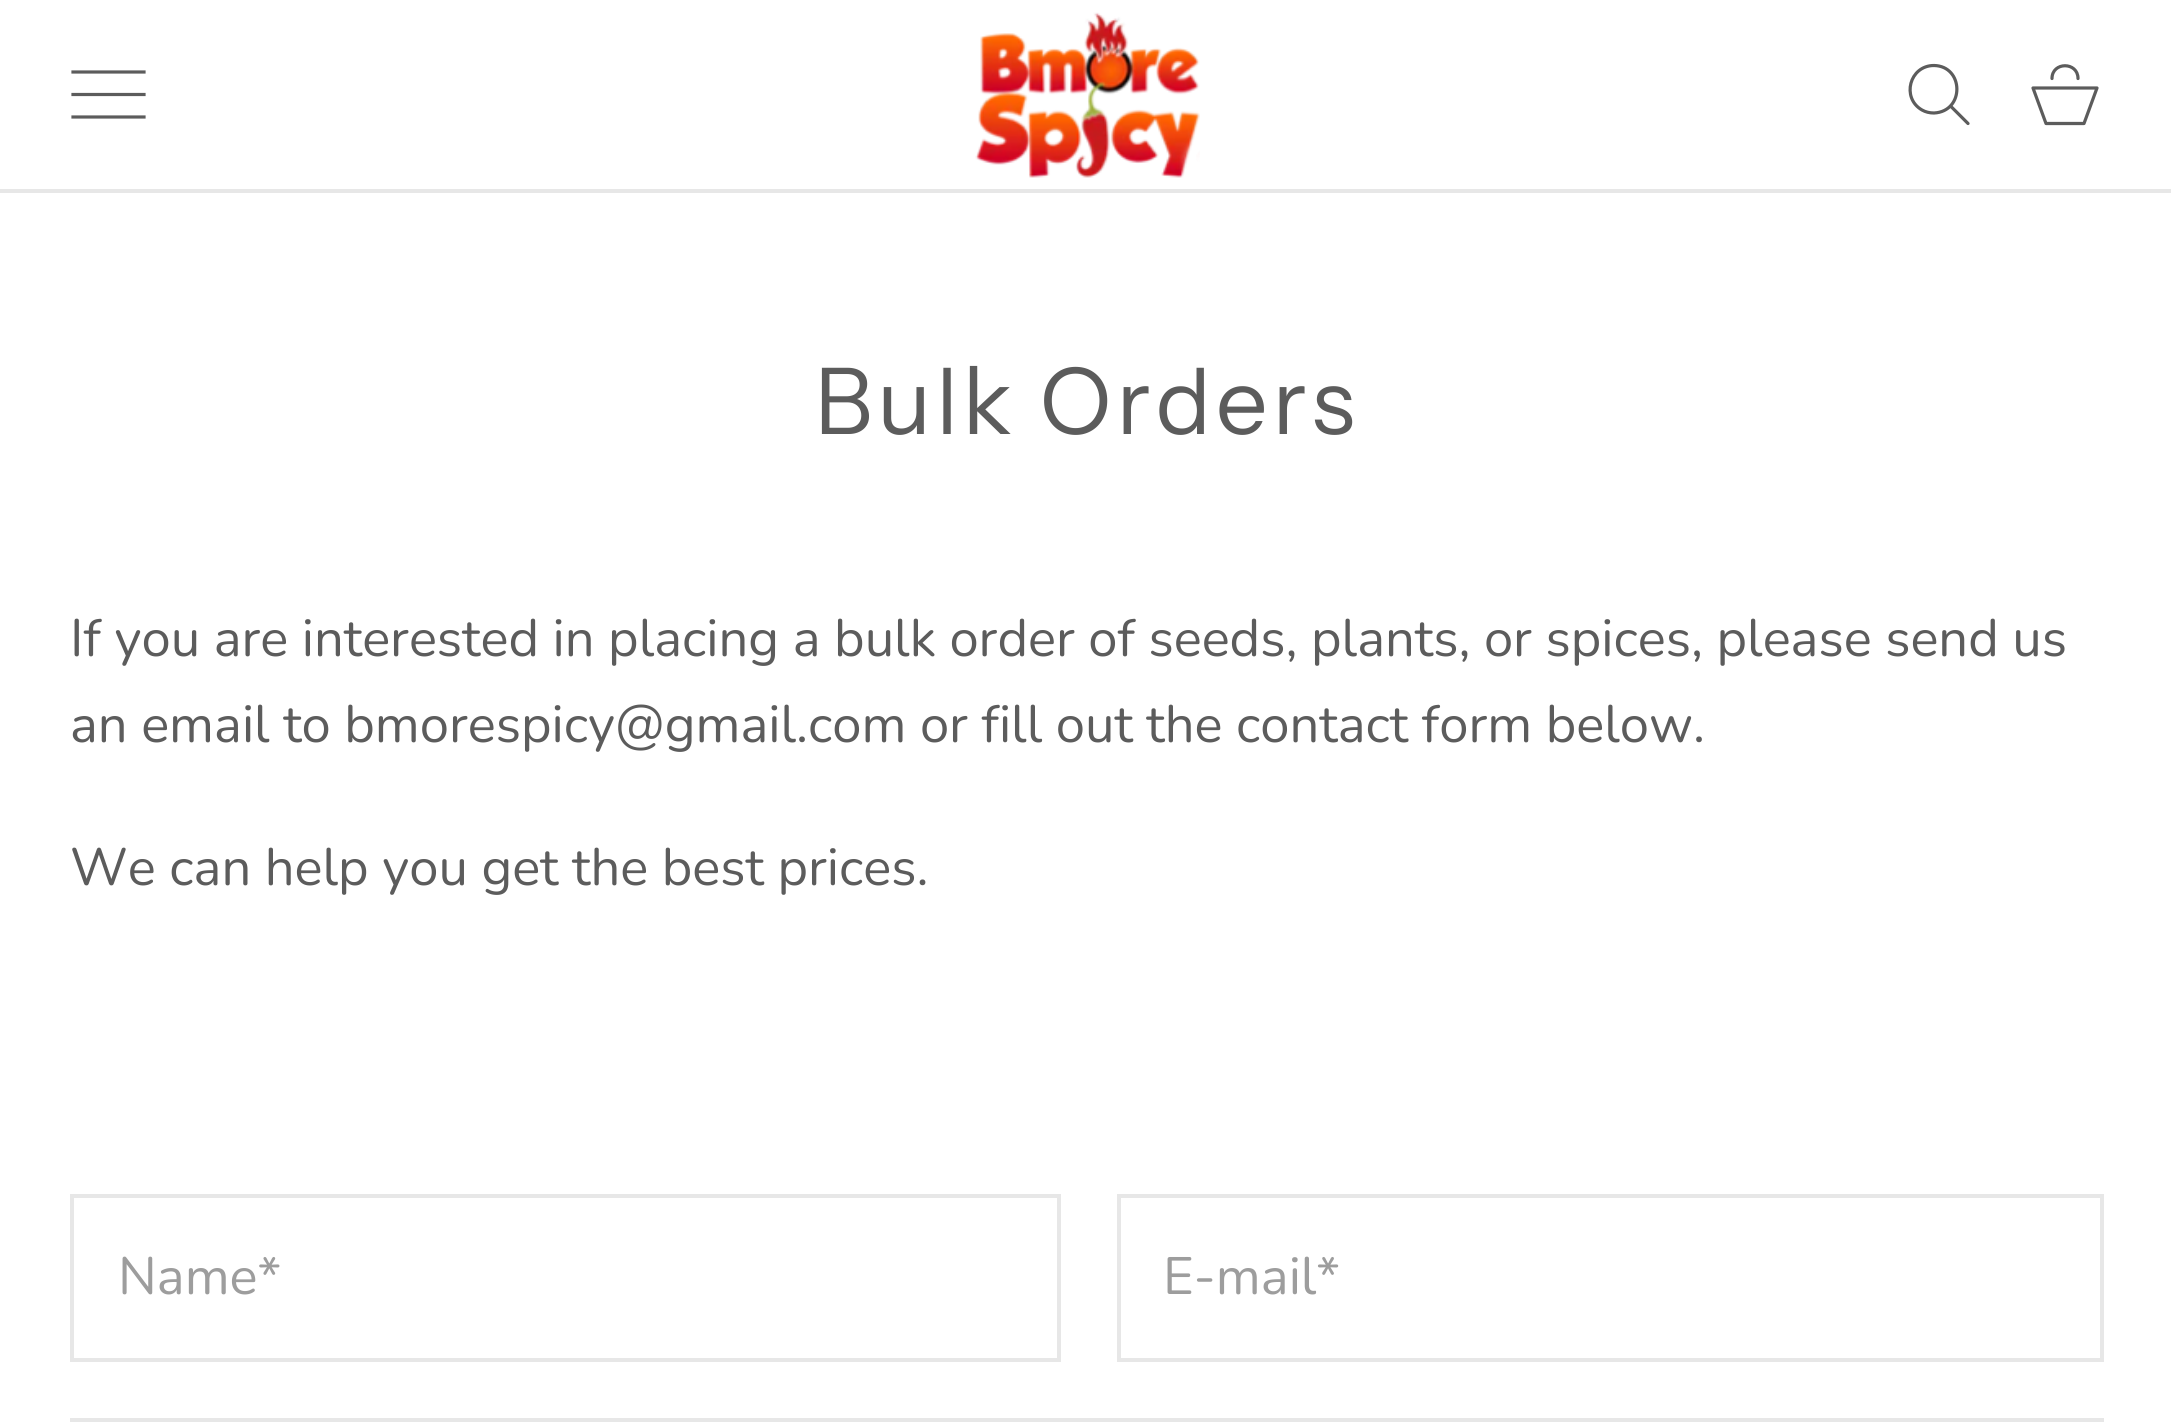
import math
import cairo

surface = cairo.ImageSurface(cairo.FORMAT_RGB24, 2171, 1422)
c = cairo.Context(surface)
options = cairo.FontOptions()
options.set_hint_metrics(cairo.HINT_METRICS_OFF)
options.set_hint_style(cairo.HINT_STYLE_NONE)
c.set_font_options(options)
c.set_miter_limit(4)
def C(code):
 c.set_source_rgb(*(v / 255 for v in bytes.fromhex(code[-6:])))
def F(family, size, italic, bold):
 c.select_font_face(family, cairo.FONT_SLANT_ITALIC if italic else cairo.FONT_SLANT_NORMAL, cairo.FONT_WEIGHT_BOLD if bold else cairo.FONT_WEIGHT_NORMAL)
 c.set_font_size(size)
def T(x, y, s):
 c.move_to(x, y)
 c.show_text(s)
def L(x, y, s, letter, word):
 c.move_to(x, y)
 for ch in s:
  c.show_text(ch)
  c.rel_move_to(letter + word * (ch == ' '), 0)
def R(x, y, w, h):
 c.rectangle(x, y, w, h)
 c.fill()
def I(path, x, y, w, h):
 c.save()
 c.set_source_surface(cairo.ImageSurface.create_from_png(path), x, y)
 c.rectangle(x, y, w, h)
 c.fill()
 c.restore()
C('ffffff')
c.paint()
C('e7e7e7')
R(0,189,2171,4)
c.new_path()
c.move_to(73,117)
c.line_to(144,117)
c.move_to(73,94.5)
c.line_to(144,94.5)
c.move_to(73,72)
c.line_to(144,72)
C('5c5c5c')
c.set_line_width(3.2)
c.set_line_cap(cairo.LINE_CAP_SQUARE)
c.stroke()
I('1.png',975,12,225,166)
c.new_path()
c.move_to(1934,65.5)
c.curve_to(1909.5,65.5,1901,98,1922,110)
c.curve_to(1925.5,112,1929.5,113,1934,113)
c.curve_to(1965,111.5,1964,66,1934,65.5)
c.close_path()
c.set_line_cap(cairo.LINE_CAP_BUTT)
c.stroke()
c.new_path()
c.move_to(1951.5,107)
c.line_to(1968,123.5)
c.set_line_cap(cairo.LINE_CAP_ROUND)
c.stroke()
c.new_path()
c.move_to(2033,88)
c.line_to(2097,88)
c.line_to(2084,123.5)
c.line_to(2046,123.5)
c.close_path()
c.move_to(2078,78.5)
c.curve_to(2078,61.5,2052,61.5,2052,78.5)
c.set_line_join(cairo.LINE_JOIN_ROUND)
c.stroke()
F('Instrument Sans',92,0,0)
L(814,434,'Bulk Orders',4.6,0)
F('Nunito',52.5,0,0)
T(70,656,'If you are interested in placing a bulk order of seeds, plants, or spices, please send us')
T(70,742,'an email to bmorespicy@gmail.com or fill out the contact form below.')
T(70,885,'We can help you get the best prices.')
c.rectangle(72,1196,987,164)
C('e7e7e7')
c.set_line_width(4)
c.set_line_cap(cairo.LINE_CAP_BUTT)
c.set_line_join(cairo.LINE_JOIN_MITER)
c.stroke()
C('9d9d9d')
T(118,1294,'Name*')
c.rectangle(1119,1196,983,164)
C('e7e7e7')
c.stroke()
C('9d9d9d')
T(1163,1294,'E-mail*')
c.rectangle(72,1420,2030,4)
C('e7e7e7')
c.stroke()
surface.write_to_png('o.png')
